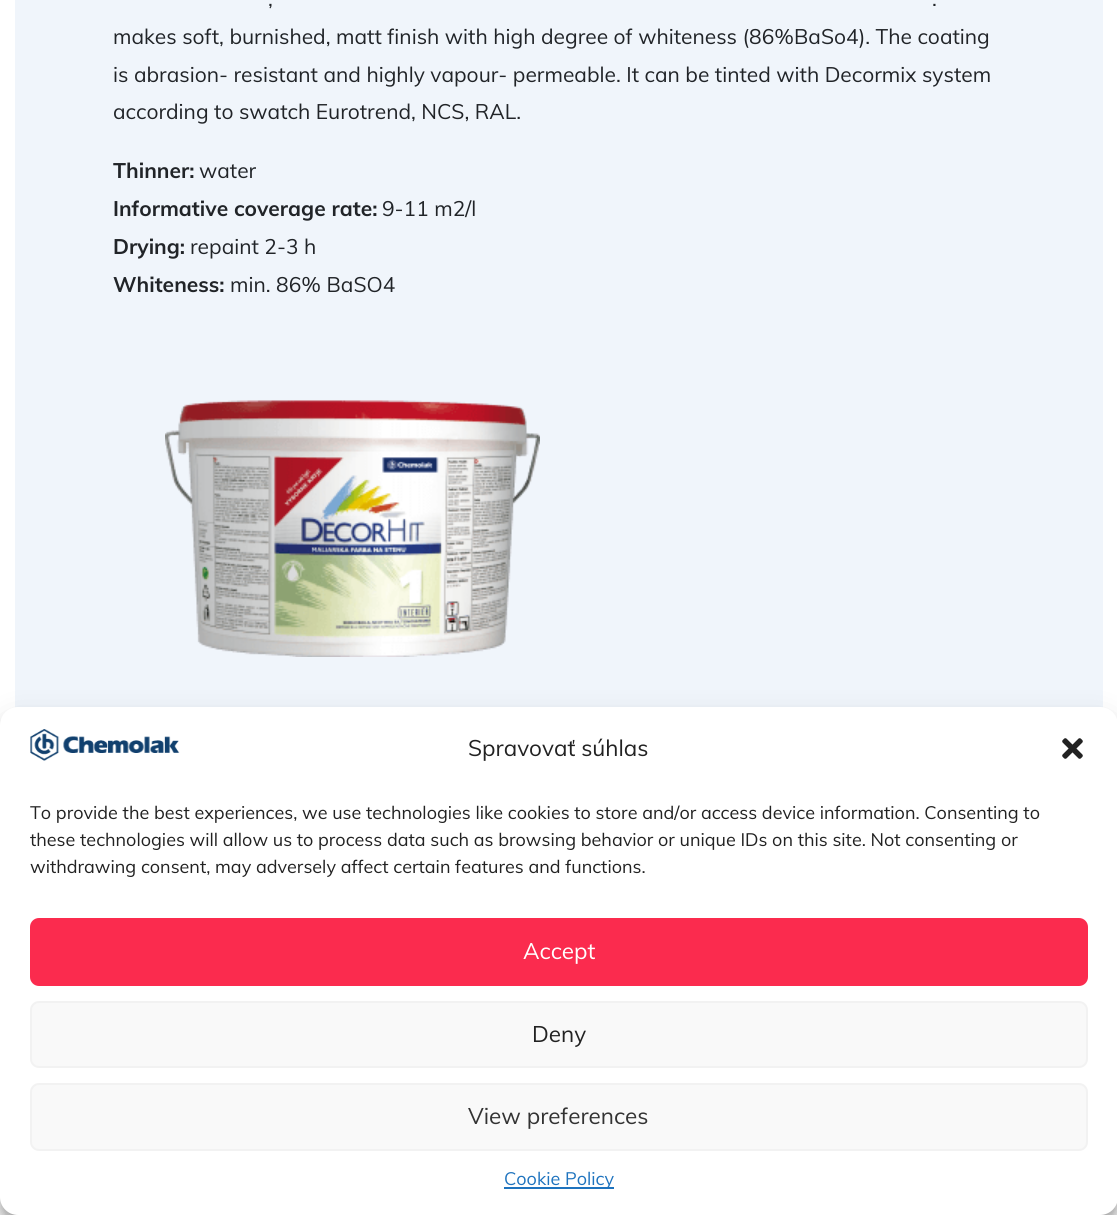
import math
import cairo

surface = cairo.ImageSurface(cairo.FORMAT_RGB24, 1117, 1215)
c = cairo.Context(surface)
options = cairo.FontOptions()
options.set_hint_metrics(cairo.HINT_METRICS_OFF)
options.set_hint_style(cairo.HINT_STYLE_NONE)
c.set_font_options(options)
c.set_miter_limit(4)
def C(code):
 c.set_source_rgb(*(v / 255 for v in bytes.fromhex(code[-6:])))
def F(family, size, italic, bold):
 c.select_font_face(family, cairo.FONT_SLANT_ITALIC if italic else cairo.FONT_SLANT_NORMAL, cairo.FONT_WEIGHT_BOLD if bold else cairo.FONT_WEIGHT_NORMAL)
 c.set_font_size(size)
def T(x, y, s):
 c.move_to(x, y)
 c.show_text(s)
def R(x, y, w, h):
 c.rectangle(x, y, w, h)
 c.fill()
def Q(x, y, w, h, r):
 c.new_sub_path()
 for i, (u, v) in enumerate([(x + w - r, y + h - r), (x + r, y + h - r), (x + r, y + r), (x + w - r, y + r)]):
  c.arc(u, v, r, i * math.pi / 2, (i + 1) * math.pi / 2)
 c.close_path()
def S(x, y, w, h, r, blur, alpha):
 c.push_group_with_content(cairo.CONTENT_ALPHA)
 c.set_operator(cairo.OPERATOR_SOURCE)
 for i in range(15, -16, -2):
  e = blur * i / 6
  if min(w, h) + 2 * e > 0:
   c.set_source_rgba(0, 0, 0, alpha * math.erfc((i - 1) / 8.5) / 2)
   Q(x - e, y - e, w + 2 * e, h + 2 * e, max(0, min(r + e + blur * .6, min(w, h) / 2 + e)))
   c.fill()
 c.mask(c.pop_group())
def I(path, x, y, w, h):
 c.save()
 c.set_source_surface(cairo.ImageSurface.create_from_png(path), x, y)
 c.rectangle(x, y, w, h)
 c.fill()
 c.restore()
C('ffffff')
c.paint()
C('f0f5fb')
R(15,0,1088,708)
F('Muli',21,0,0)
C('212428')
T(268,6,',')
T(932,6,'.')
T(113,44,'makes soft, burnished, matt finish with high degree of whiteness (86%BaSo4). The coating')
T(113,82,'is abrasion- resistant and highly vapour- permeable. It can be tinted with Decormix system')
T(113,119,'according to swatch Eurotrend, NCS, RAL.')
F('Muli',21,0,1)
T(113,178,'Thinner:')
F('Muli',21,0,0)
T(199,178,'water')
F('Muli',21,0,1)
T(113,216,'Informative coverage rate:')
F('Muli',21,0,0)
T(382,216,'9-11 m2/l')
F('Muli',21,0,1)
T(113,254,'Drying:')
F('Muli',21,0,0)
T(190,254,'repaint 2-3 h')
F('Muli',21,0,1)
T(113,292,'Whiteness:')
F('Muli',21,0,0)
T(230,292,'min. 86% BaSO4')
I('1.png',165,400,375,257)
C('000000')
S(0,716,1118,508,18,4.5,.23)
S(0,722,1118,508,18,15,.19)
C('ffffff')
Q(0,707,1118,508,18)
c.fill()
I('2.png',30,729,150,32)
F('Muli',22.5,0,0)
C('222222')
T(468,756,'Spravovať súhlas')
I('3.png',1062,738,21,21)
F('Muli',18,0,0)
T(30,819,'To provide the best experiences, we use technologies like cookies to store and/or access device information. Consenting to')
T(30,846,'these technologies will allow us to process data such as browsing behavior or unique IDs on this site. Not consenting or')
T(30,873,'withdrawing consent, may adversely affect certain features and functions.')
C('fb2b4e')
Q(30,918,1058,68,9)
c.fill()
F('Muli',22.5,0,0)
C('ffffff')
T(523,959,'Accept')
C('f9f9f9')
Q(31,1002,1056,65,8)
c.fill_preserve()
C('f2f2f2')
c.stroke()
C('222222')
T(532,1042,'Deny')
C('f9f9f9')
Q(31,1084,1056,66,8)
c.fill_preserve()
C('f2f2f2')
c.stroke()
C('333333')
T(468,1124,'View preferences')
C('1e73be')
R(504,1187,110,2)
F('Muli',18,0,0)
T(504,1185,'Cookie Policy')
surface.write_to_png('o.png')
